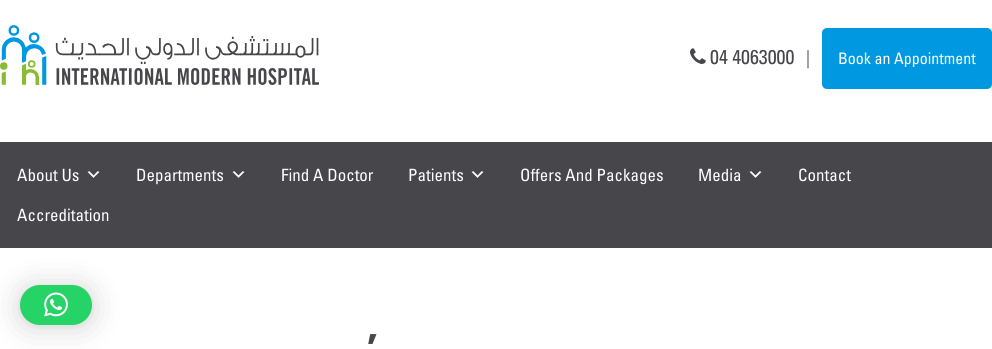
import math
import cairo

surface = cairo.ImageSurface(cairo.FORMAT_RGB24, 992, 349)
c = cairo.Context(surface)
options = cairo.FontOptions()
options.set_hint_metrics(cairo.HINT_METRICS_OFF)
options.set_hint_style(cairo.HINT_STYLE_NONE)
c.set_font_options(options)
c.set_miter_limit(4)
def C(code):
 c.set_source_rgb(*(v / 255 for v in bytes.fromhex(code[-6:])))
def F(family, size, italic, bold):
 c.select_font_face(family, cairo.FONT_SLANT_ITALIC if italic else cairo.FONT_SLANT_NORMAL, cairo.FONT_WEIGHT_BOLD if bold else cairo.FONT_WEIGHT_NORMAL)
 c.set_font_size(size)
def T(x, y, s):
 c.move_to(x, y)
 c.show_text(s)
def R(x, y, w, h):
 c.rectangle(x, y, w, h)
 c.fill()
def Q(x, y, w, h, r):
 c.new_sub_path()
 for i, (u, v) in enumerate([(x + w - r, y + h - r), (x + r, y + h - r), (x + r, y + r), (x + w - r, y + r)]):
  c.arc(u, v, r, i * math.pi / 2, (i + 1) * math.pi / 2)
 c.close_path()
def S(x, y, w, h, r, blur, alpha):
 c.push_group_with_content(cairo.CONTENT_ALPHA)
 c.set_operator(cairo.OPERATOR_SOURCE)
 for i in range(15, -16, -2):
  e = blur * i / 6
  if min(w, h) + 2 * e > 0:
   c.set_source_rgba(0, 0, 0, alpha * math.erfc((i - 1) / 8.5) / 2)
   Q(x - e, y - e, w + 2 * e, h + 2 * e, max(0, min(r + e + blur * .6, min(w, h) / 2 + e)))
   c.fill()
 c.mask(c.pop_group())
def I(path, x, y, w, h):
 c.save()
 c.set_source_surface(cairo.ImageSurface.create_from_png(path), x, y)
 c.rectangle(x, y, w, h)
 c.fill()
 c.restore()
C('ffffff')
c.paint()
I('1.png',0,25,319,60)
I('2.png',690,48,16,16)
F('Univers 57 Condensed',20,0,0)
C('46464b')
T(710,64,'04 4063000')
F('Liberation Serif',20,0,0)
T(806,64,'|')
C('0098e0')
Q(822,28,170,61,5)
c.fill()
F('Univers 57 Condensed',16,0,0)
C('ffffff')
T(838,64,'Book an Appointment')
C('46464b')
R(0,142,992,106)
F('Univers 57 Condensed',17,0,0)
C('ffffff')
T(17,181,'About Us')
I('3.png',87,171,13,7)
T(136,181,'Departments')
I('3.png',232,171,13,7)
T(281,181,'Find A Doctor')
T(408,181,'Patients')
I('3.png',471,171,13,7)
T(520,181,'Offers And Packages')
T(698,181,'Media')
I('3.png',749,171,13,7)
T(798,181,'Contact')
T(17,221,'Accreditation')
C('000000')
S(20,287,72,40,20,16,.16)
S(20,286,72,40,20,3,.06)
C('25d366')
Q(20,285,72,40,20)
c.fill()
I('4.png',44,292,24,25)
F('Univers 57 Condensed',44,0,1)
C('46464b')
T(367,367,'’')
surface.write_to_png('o.png')
